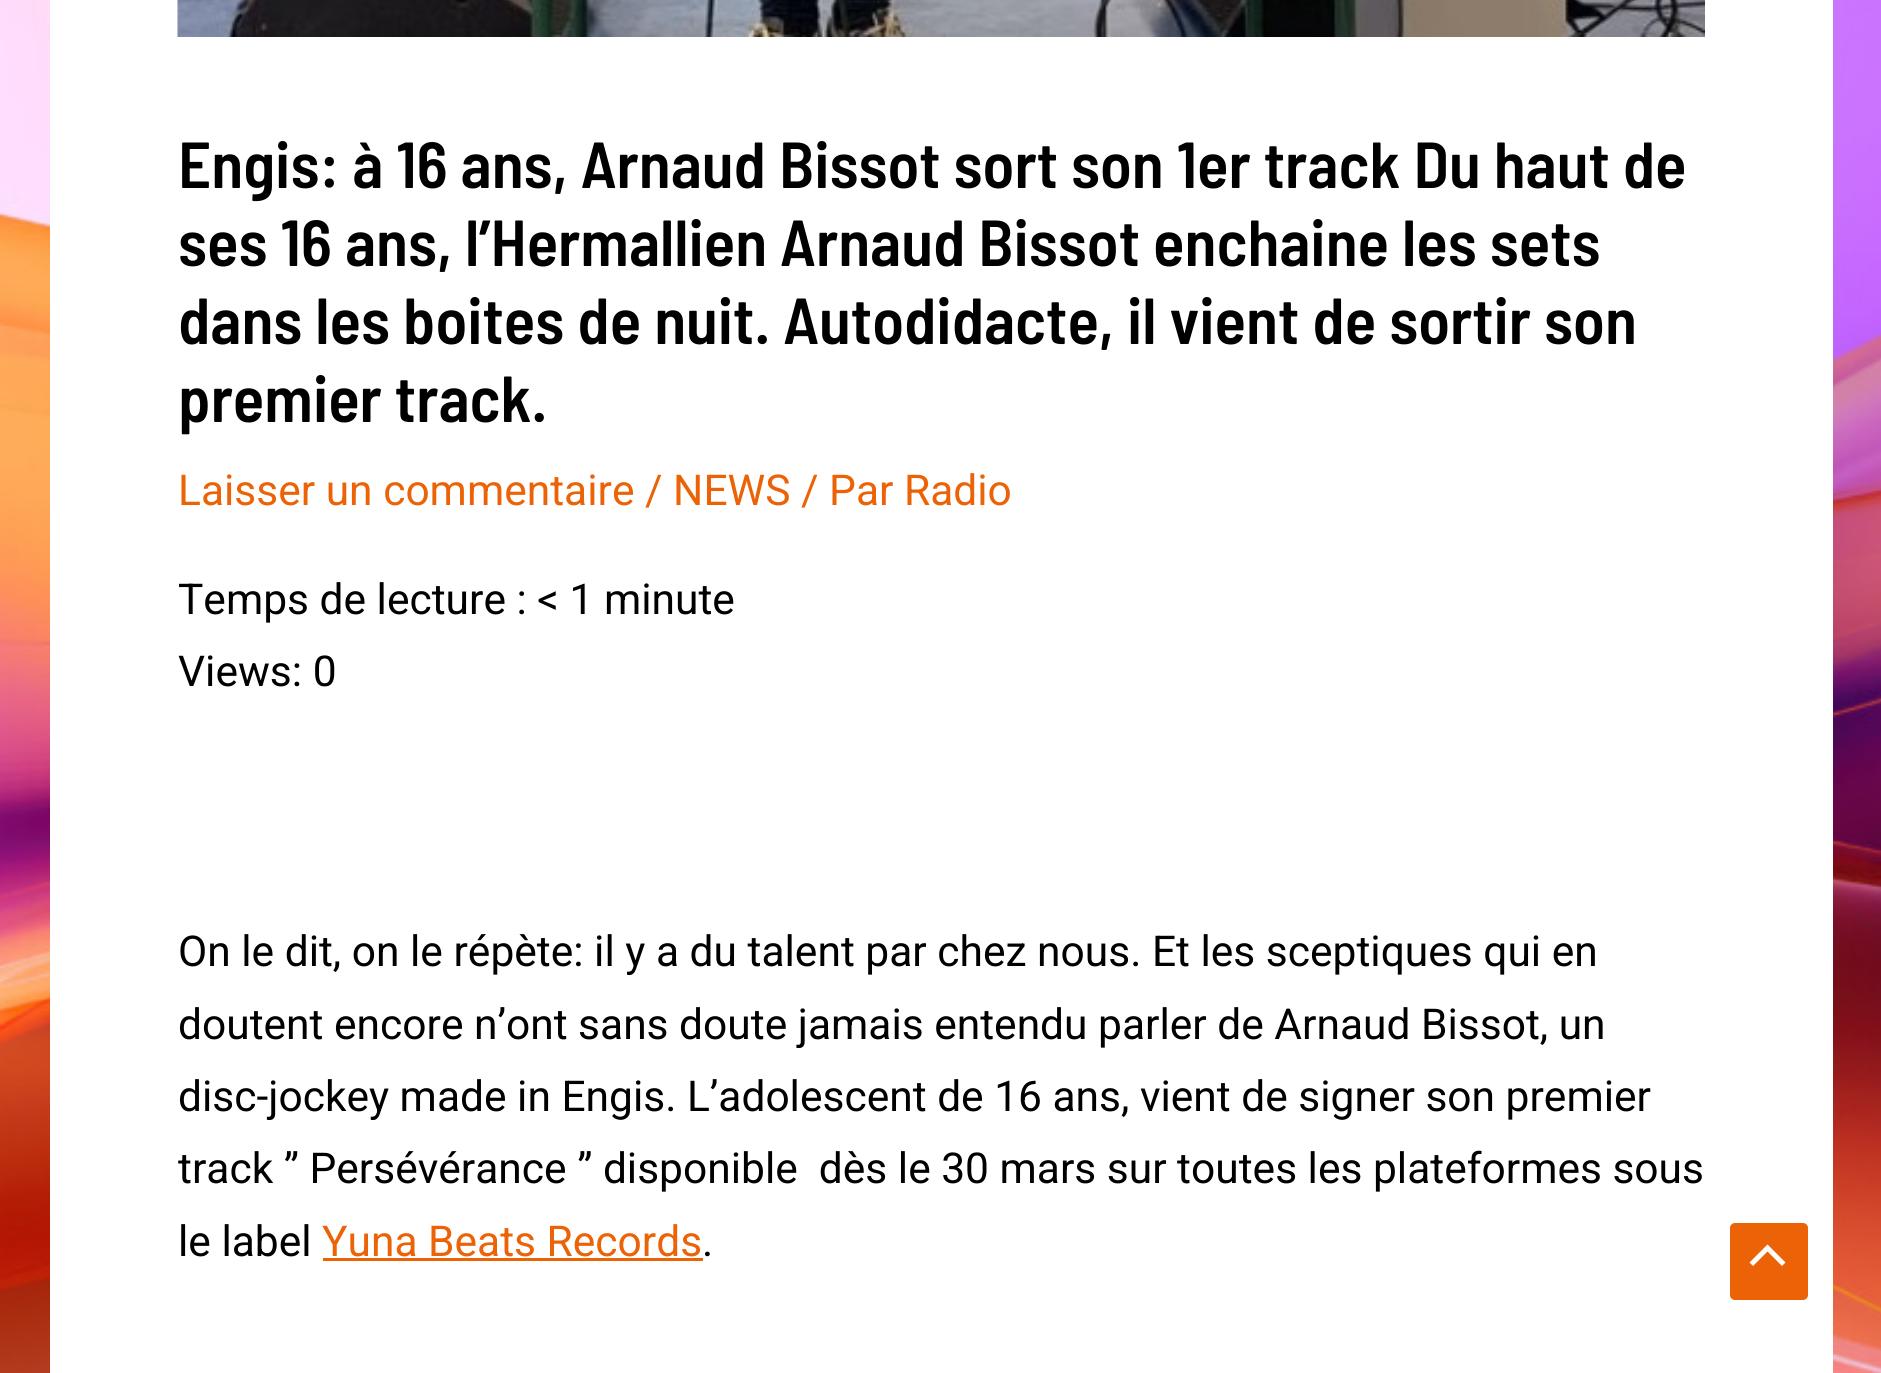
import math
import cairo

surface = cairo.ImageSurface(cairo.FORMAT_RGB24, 1881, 1373)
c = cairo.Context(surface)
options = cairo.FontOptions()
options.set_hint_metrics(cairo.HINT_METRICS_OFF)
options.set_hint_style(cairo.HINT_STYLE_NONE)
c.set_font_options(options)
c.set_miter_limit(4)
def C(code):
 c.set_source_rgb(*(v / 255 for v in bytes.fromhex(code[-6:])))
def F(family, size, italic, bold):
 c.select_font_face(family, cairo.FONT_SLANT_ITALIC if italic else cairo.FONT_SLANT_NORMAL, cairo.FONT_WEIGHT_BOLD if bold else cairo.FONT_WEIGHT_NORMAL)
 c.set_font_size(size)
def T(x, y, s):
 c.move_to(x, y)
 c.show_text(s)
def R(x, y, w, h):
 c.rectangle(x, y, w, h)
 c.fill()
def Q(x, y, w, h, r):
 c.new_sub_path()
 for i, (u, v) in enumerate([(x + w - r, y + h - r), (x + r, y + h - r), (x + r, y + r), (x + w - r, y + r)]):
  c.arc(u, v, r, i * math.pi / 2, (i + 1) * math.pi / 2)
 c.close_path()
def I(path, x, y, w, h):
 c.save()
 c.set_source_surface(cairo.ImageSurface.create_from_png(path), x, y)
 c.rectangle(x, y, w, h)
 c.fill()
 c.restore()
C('ffffff')
c.paint()
I('1.png',0,0,1881,1373)
C('ffffff')
R(50,0,1783,1373)
I('2.png',177,0,1528,37)
F('Barlow Semi Condensed SemiBold',65,0,0)
C('000000')
T(178,188,'Engis: à 16 ans, Arnaud Bissot sort son 1er track Du haut de')
T(178,266,'ses 16 ans, l’Hermallien Arnaud Bissot enchaine les sets')
T(178,344,'dans les boites de nuit. Autodidacte, il vient de sortir son')
T(178,422,'premier track.')
F('Roboto',42.5,0,0)
C('ec6206')
T(178,505,'Laisser un commentaire / NEWS / Par Radio')
C('000000')
T(178,614,'Temps de lecture : < 1 minute')
T(178,686,'Views: 0')
T(178,966,'On le dit, on le répète: il y a du talent par chez nous. Et les sceptiques qui en')
T(178,1039,'doutent encore n’ont sans doute jamais entendu parler de Arnaud Bissot, un')
T(178,1111,'disc-jockey made in Engis. L’adolescent de 16 ans, vient de signer son premier')
T(178,1183,'track ” Persévérance ” disponible  dès le 30 mars sur toutes les plateformes sous')
T(178,1256,'le label')
C('ec6206')
T(322,1256,'Yuna Beats Records')
R(323,1258,380,3)
C('000000')
T(702,1256,'.')
C('ec6206')
Q(1730,1223,78,77,5)
c.fill()
C('ffffff')
c.new_path()
c.move_to(1785.5,1262.5)
c.line_to(1767.5,1244.5)
c.line_to(1749.5,1262.5)
c.line_to(1753,1266)
c.line_to(1767.5,1251.5)
c.line_to(1782,1266)
c.close_path()
c.fill()
surface.write_to_png('o.png')
